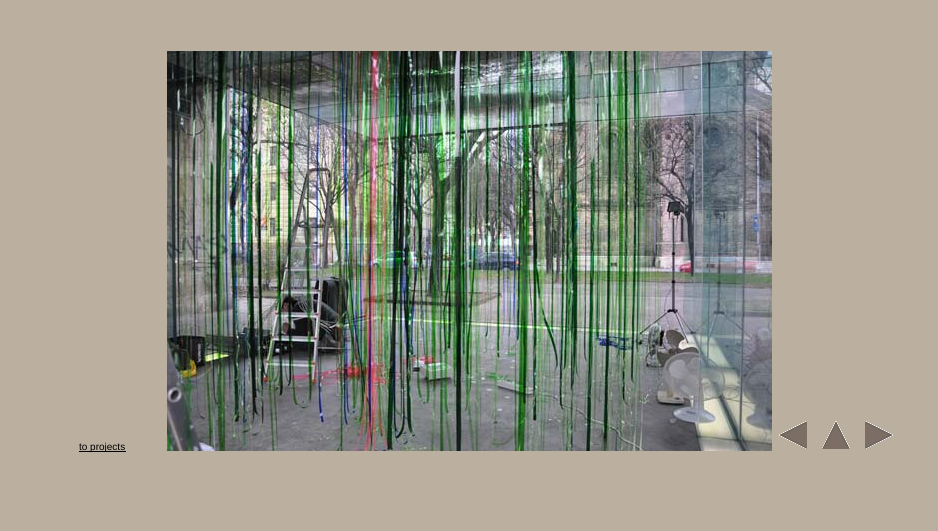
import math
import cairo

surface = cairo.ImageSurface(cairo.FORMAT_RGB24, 938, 531)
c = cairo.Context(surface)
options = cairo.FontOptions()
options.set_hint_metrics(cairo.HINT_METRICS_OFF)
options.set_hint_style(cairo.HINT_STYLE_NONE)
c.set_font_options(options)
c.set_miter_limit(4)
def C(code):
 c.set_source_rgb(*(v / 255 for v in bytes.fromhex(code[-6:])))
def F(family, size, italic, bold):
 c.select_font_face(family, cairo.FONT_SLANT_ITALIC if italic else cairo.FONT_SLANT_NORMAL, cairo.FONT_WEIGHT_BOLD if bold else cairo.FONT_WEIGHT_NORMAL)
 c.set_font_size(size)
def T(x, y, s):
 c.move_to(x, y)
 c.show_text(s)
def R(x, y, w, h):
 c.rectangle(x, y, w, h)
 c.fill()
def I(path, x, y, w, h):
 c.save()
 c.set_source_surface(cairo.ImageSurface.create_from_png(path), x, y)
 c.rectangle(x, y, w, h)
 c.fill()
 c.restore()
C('bbaf9f')
c.paint()
C('000000')
R(79,451,47,1)
F('Liberation Sans',10,0,0)
T(79,450,'to projects')
I('1.png',167,51,605,400)
I('2.png',779,421,28,28)
I('3.png',822,421,28,28)
I('4.png',865,421,28,28)
surface.write_to_png('o.png')
